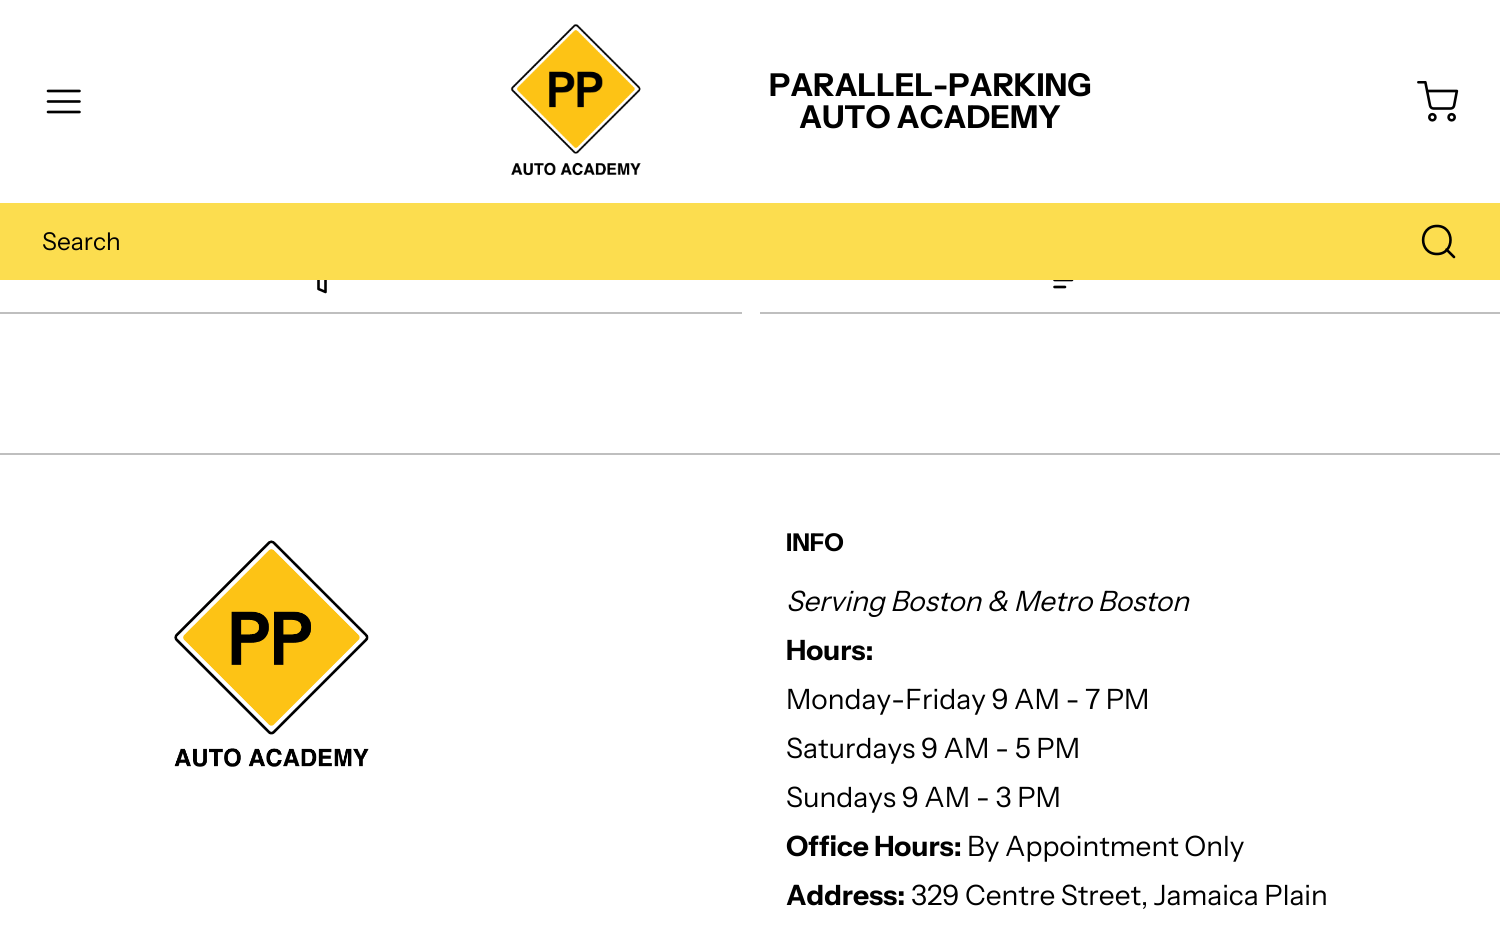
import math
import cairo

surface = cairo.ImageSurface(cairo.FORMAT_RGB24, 1500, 936)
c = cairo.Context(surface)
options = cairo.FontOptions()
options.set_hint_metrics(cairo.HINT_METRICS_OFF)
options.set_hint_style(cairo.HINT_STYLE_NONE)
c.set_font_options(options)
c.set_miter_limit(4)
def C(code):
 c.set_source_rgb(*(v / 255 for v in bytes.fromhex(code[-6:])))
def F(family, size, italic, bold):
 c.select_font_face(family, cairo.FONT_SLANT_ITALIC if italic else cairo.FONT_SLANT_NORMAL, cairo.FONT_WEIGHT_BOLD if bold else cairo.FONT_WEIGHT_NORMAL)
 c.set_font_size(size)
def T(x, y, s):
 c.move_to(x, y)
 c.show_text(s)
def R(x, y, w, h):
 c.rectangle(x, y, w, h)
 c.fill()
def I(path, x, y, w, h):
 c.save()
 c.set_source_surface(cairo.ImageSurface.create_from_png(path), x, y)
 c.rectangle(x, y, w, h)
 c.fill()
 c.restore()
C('ffffff')
c.paint()
c.new_path()
c.move_to(48,101.5)
c.line_to(79.5,101.5)
c.move_to(48,91)
c.line_to(79.5,91)
c.move_to(48,112)
c.line_to(79.5,112)
C('000000')
c.set_line_width(2.6)
c.set_line_cap(cairo.LINE_CAP_ROUND)
c.set_line_join(cairo.LINE_JOIN_ROUND)
c.stroke()
I('1.png',510,24,131,152)
F('Instrument Sans',31.5,0,1)
T(769,96,'PARALLEL-PARKING')
T(799,128,'AUTO ACADEMY')
I('2.png',1417,81,42,41)
c.new_path()
c.move_to(339.5,261)
c.line_to(304.5,261)
c.line_to(318.5,277.5)
c.line_to(318.5,289)
c.line_to(325.5,292)
c.line_to(325.5,277.5)
c.close_path()
c.stroke()
c.new_path()
c.move_to(1072,280)
c.line_to(1054.5,280)
c.move_to(1065,287)
c.line_to(1054.5,287)
c.stroke()
C('fcdd4f')
R(0,203,1500,77)
F('Instrument Sans',24.5,0,0)
C('000000')
T(42,250,'Search')
c.new_path()
c.move_to(1437,254)
c.curve_to(1455,254,1455,226,1437,226)
c.curve_to(1418.5,226,1418.5,254,1437,254)
c.close_path()
c.move_to(1454,257)
c.line_to(1446.5,249.5)
c.stroke()
C('bfbfbf')
R(0,312,742,2)
R(760,312,740,2)
R(0,453,1500,2)
I('3.png',174,540,195,227)
F('Instrument Sans',24.5,0,1)
C('000000')
T(786,551,'INFO')
F('Instrument Sans',28,1,0)
T(786,611,'Serving Boston & Metro Boston')
F('Instrument Sans',28,0,1)
T(786,660,'Hours:')
F('Instrument Sans',28,0,0)
T(786,709,'Monday-Friday 9 AM - 7 PM')
T(786,758,'Saturdays 9 AM - 5 PM')
T(786,807,'Sundays 9 AM - 3 PM')
F('Instrument Sans',28,0,1)
T(786,856,'Office Hours:')
F('Instrument Sans',28,0,0)
T(967,856,'By Appointment Only')
F('Instrument Sans',28,0,1)
T(786,905,'Address:')
F('Instrument Sans',28,0,0)
T(911,905,'329 Centre Street, Jamaica Plain')
surface.write_to_png('o.png')
